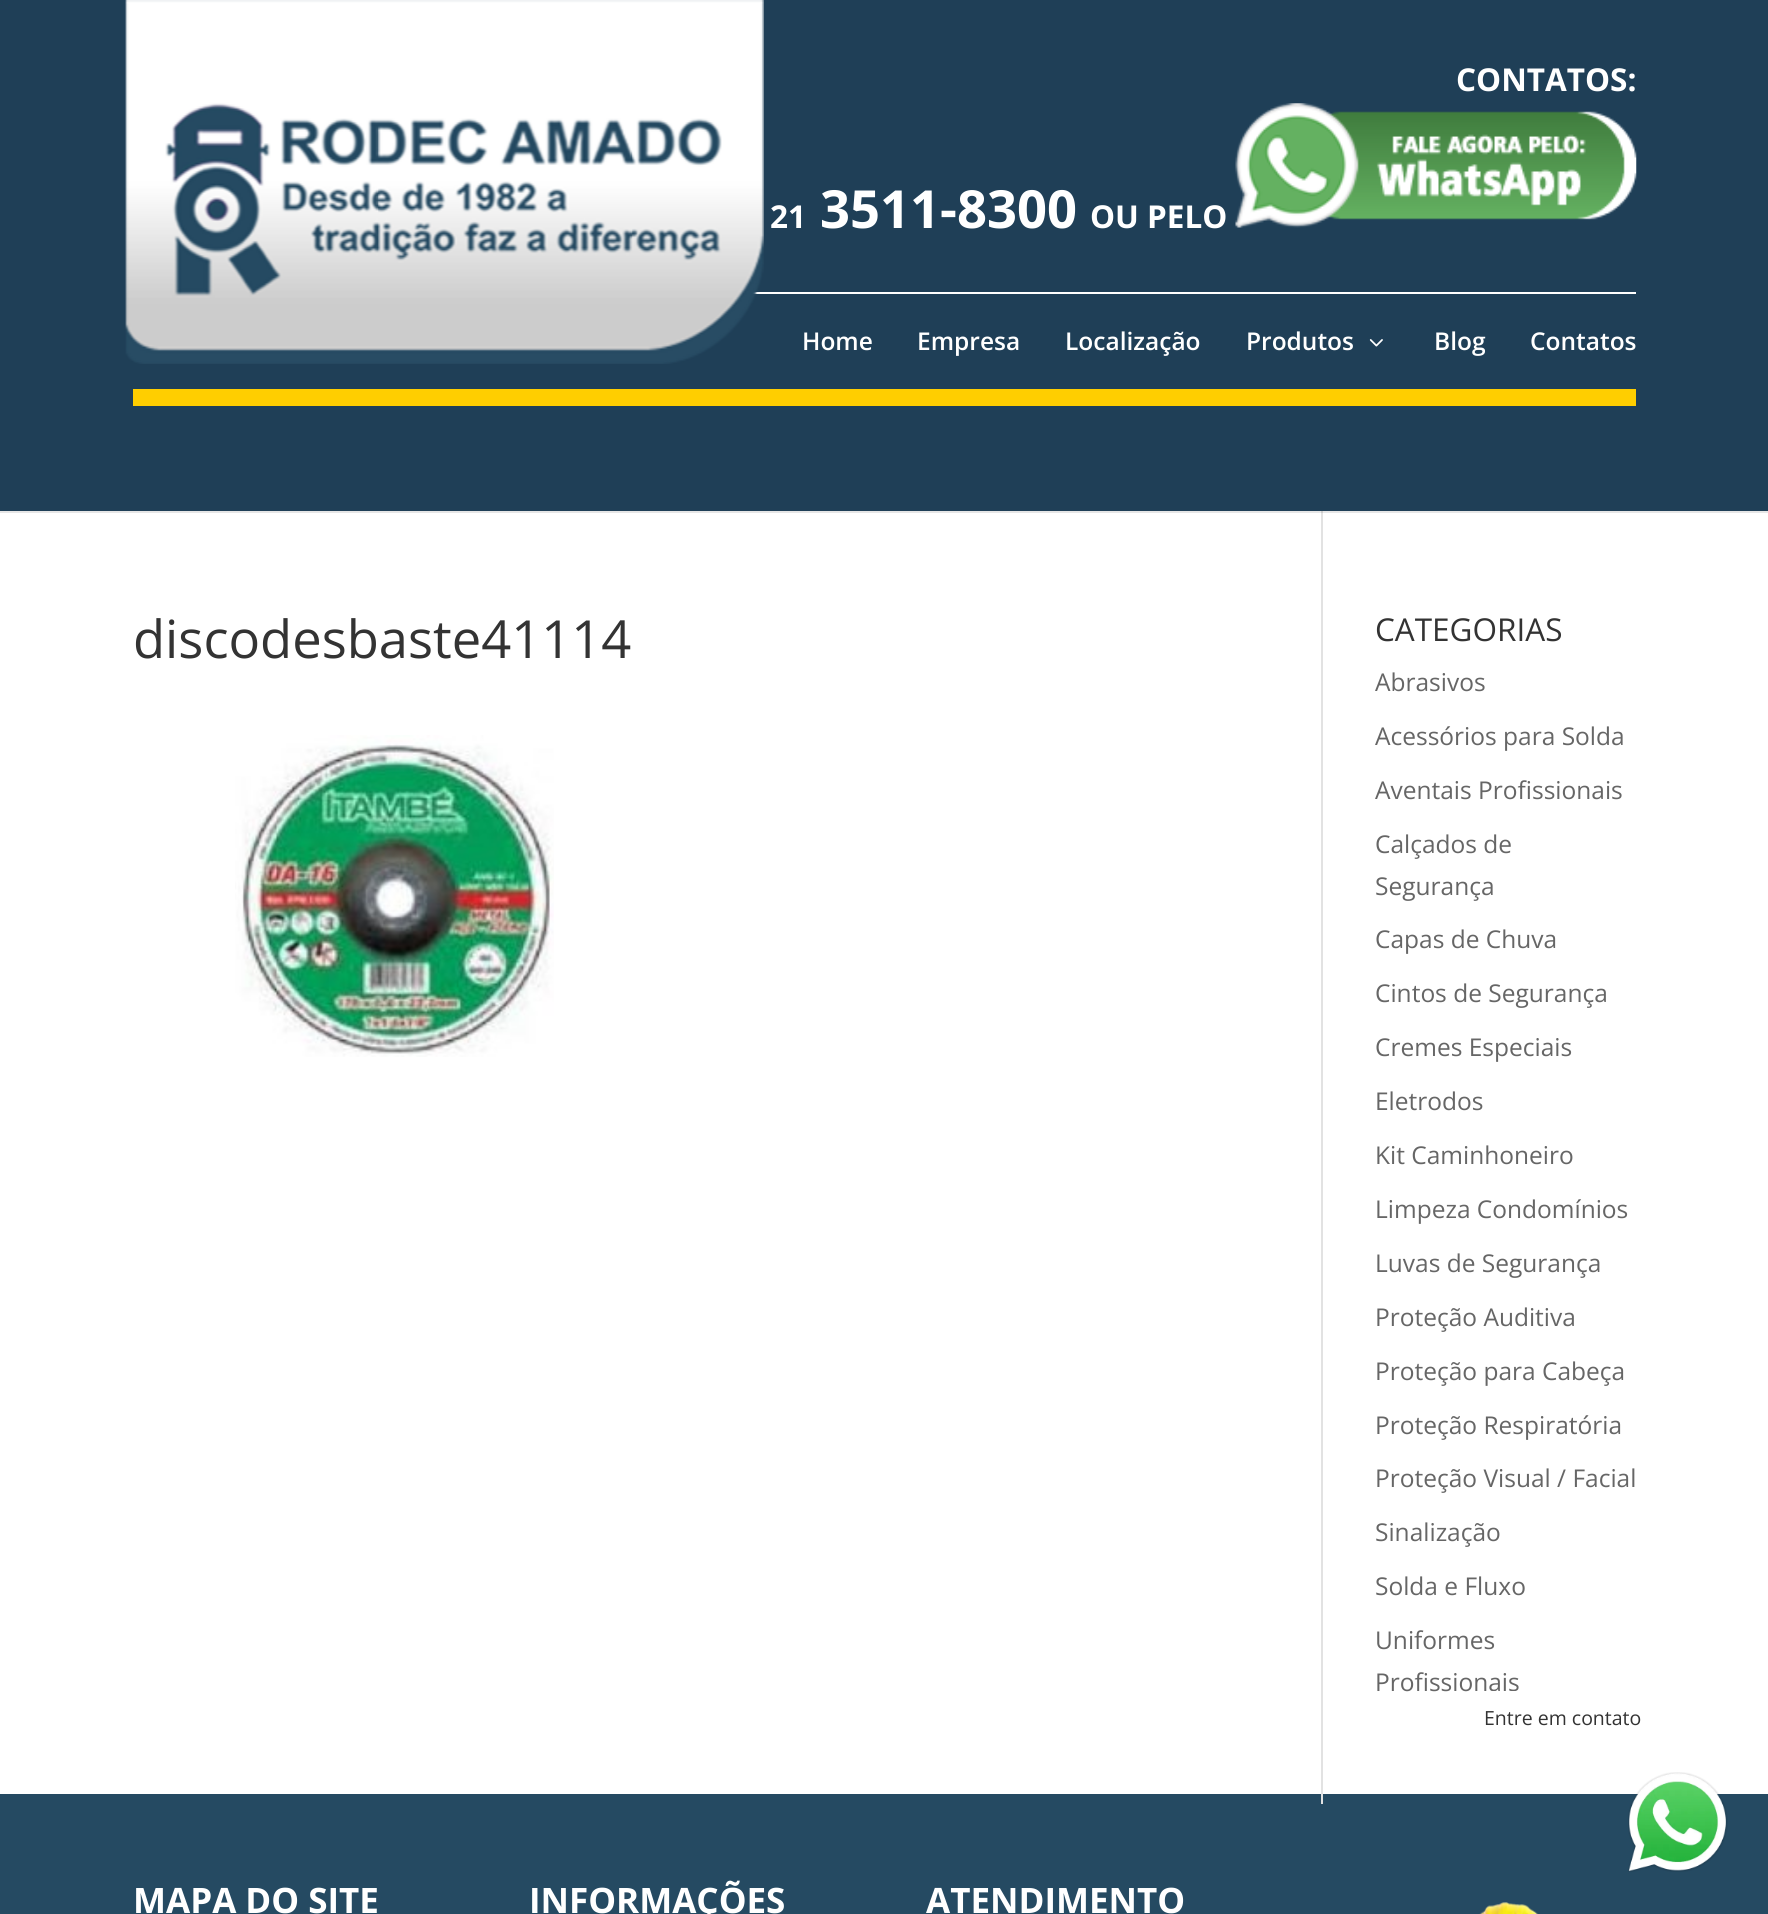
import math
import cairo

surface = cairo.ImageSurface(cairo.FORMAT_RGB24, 1768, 1914)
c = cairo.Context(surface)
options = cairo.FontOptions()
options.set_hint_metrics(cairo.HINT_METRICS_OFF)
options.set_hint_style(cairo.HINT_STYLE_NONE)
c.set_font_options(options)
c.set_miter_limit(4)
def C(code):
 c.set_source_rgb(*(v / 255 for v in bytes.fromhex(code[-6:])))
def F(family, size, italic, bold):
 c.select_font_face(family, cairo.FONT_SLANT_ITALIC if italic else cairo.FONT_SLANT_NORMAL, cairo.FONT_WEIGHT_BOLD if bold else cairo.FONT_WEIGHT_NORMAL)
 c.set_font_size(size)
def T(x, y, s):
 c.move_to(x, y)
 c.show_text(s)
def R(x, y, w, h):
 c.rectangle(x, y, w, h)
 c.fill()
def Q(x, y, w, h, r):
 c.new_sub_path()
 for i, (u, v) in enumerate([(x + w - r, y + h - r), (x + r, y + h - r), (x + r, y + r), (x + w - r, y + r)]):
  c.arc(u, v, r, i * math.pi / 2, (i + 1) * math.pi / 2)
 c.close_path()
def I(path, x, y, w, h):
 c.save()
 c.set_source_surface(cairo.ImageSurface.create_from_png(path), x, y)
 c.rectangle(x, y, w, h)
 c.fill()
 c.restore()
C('ffffff')
c.paint()
C('e6e6e6')
R(0,511,1768,2)
C('1f3f57')
R(0,0,1768,511)
C('ffffff')
R(752,292,884,2)
I('1.png',125,0,639,364)
F('Open Sans',31.5,0,1)
T(1456,91,'CONTATOS:')
T(770,228,'21')
F('Open Sans',52.5,0,1)
T(820,228,'3511-8300')
F('Open Sans',31.5,0,1)
T(1090,228,'OU PELO')
I('2.png',1235,103,402,125)
C('ffce00')
R(133,389,1503,17)
F('Open Sans SemiBold',24.5,0,0)
C('ffffff')
T(802,350,'Home')
T(917,350,'Empresa')
T(1065,350,'Localização')
T(1246,350,'Produtos')
I('3.png',1369,339,14,8)
T(1434,350,'Blog')
T(1530,350,'Contatos')
C('254a62')
R(0,1794,1768,120)
C('e2e2e2')
R(1321,511,2,1293)
C('cbcbcb')
R(1321,511,2,2)
F('Open Sans',52.5,0,0)
C('333333')
T(133,658,'discodesbaste41114')
I('4.png',235,735,319,322)
F('Open Sans',31.5,0,0)
T(1375,641,'CATEGORIAS')
F('Open Sans',24.5,0,0)
C('666666')
T(1375,691,'Abrasivos')
T(1375,745,'Acessórios para Solda')
T(1375,799,'Aventais Profissionais')
T(1375,853,'Calçados de')
T(1375,895,'Segurança')
T(1375,948,'Capas de Chuva')
T(1375,1002,'Cintos de Segurança')
T(1375,1056,'Cremes Especiais')
T(1375,1110,'Eletrodos')
T(1375,1164,'Kit Caminhoneiro')
T(1375,1218,'Limpeza Condomínios')
T(1375,1272,'Luvas de Segurança')
T(1375,1326,'Proteção Auditiva')
T(1375,1380,'Proteção para Cabeça')
T(1375,1434,'Proteção Respiratória')
T(1375,1487,'Proteção Visual / Facial')
T(1375,1541,'Sinalização')
T(1375,1595,'Solda e Fluxo')
T(1375,1649,'Uniformes')
T(1375,1691,'Profissionais')
F('Open Sans',35,0,1)
C('ffffff')
T(133,1913,'MAPA DO SITE')
T(529,1913,'INFORMAÇÕES')
T(926,1913,'ATENDIMENTO')
I('5.png',1479,1902,59,12)
Q(1460,1691,206,56,28)
c.fill()
F('Open Sans',19.5,0,0)
C('333333')
T(1484,1725,'Entre em contato')
I('6.png',1628,1772,100,100)
surface.write_to_png('o.png')
